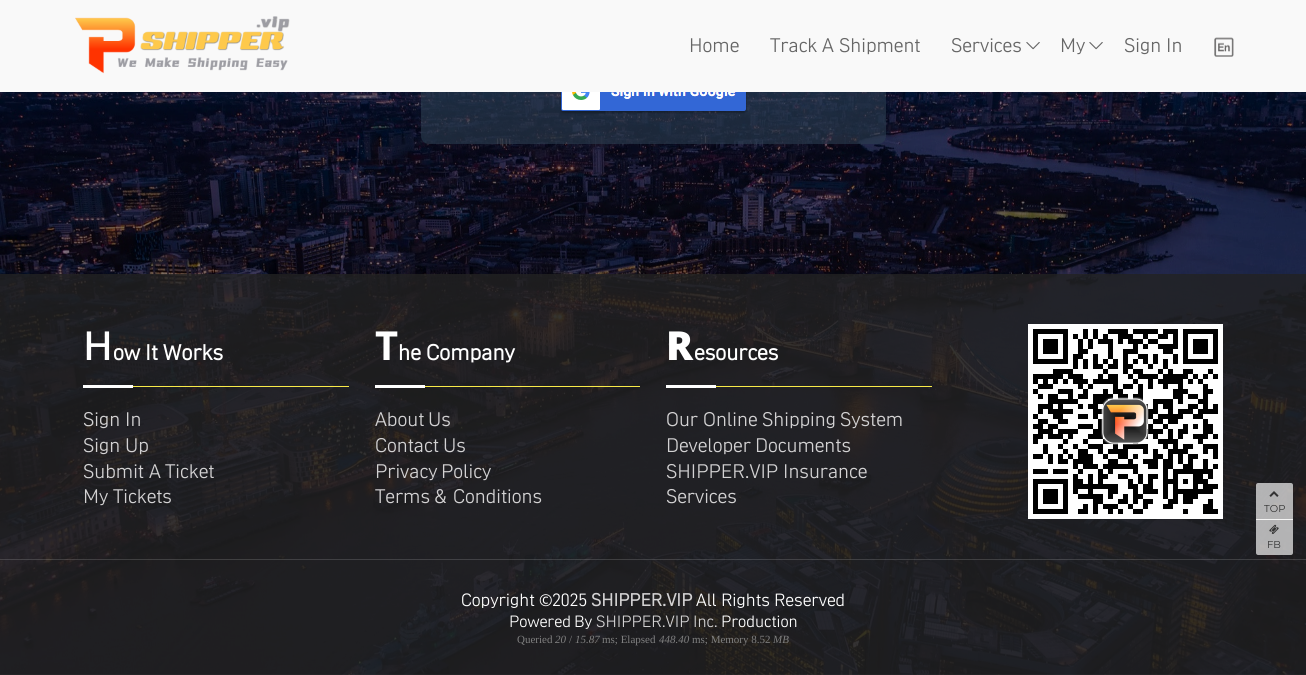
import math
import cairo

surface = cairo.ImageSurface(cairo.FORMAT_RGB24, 1306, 675)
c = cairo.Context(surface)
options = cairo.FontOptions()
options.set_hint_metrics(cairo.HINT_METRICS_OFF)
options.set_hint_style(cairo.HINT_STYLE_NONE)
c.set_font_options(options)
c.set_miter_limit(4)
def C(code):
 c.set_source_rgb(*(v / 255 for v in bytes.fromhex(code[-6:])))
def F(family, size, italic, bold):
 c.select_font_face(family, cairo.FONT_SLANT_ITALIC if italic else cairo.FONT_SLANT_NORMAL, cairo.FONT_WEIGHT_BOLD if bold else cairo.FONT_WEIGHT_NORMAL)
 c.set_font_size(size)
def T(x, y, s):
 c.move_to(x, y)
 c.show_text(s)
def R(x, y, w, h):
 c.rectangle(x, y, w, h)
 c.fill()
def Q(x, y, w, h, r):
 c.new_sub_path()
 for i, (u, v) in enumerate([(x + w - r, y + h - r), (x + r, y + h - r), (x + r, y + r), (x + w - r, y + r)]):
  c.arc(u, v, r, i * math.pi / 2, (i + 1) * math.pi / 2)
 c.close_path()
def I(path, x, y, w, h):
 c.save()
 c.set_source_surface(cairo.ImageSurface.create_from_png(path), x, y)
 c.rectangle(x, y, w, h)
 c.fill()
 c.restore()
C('ffffff')
c.paint()
I('1.png',0,92,1306,583)
c.set_source_rgba(0.173,0.243,0.314,0.6)
Q(421,-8,465,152,8)
c.fill()
I('2.png',560,92,187,22)
C('f9f9f9')
R(0,0,1306,92)
I('3.png',75,16,215,58)
F('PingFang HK',18,0,0)
C('666666')
T(689,52,'Home')
T(770,52,'Track')
T(822,52,'A')
T(839,52,'Shipment')
T(951,52,'Services')
I('4.png',1026,42,14,8)
T(1060,52,'My')
I('4.png',1089,42,14,8)
T(1124,52,'Sign')
T(1166,52,'In')
I('5.png',1214,37,20,20)
c.set_source_rgba(0.133,0.133,0.133,0.8)
R(0,274,1306,401)
C('f8ea49')
R(133,386,216,1)
F('Noto Sans Medium',40,0,0)
C('ffffff')
T(83,360,'H')
F('PingFang HK',20,0,1)
T(113,360,'ow')
T(145,360,'It')
T(163,360,'Works')
R(83,385,50,3)
F('PingFang HK',18,0,0)
C('d3d2d3')
T(83,426,'Sign')
T(125,426,'In')
T(83,452,'Sign')
T(125,452,'Up')
T(83,478,'Submit')
T(149,478,'A')
T(165,478,'Ticket')
T(83,503,'My')
T(113,503,'Tickets')
C('f8ea49')
R(425,386,215,1)
F('Noto Sans',40,0,1)
C('ffffff')
T(375,360,'T')
F('PingFang HK',20,0,1)
T(398,360,'he')
T(426,360,'Company')
R(375,385,50,3)
F('PingFang HK',18,0,0)
C('d3d2d3')
T(375,426,'About')
T(428,426,'Us')
T(375,452,'Contact')
T(443,452,'Us')
T(375,478,'Privacy')
T(441,478,'Policy')
T(375,503,'Terms')
T(434,503,'&')
T(453,503,'Conditions')
C('f8ea49')
R(716,386,216,1)
F('Noto Sans Black',40,0,0)
C('ffffff')
T(666,360,'R')
F('PingFang HK',20,0,1)
T(694,360,'esources')
R(666,385,50,3)
F('PingFang HK',18,0,0)
C('d3d2d3')
T(666,426,'Our')
T(703,426,'Online')
T(762,426,'Shipping')
T(840,426,'System')
T(666,452,'Developer')
T(755,452,'Documents')
T(666,478,'SHIPPER.VIP')
T(783,478,'Insurance')
T(666,503,'Services')
I('6.png',1028,324,195,195)
F('PingFang HK',16.25,0,0)
C('ffffff')
T(461,606,'Copyright')
F('Open Sans',16.25,0,0)
T(539,606,'©')
F('PingFang HK',16.25,0,0)
T(552,606,'2025')
F('PingFang HK',16.25,0,1)
C('d3d2d3')
T(591,606,'SHIPPER.VIP')
F('PingFang HK',16.25,0,0)
C('ffffff')
T(696,606,'All')
T(721,606,'Rights')
T(774,606,'Reserved')
F('PingFang HK',15,0,0)
T(509,627,'Powered')
T(574,627,'By')
C('d3d2d3')
T(596,627,'SHIPPER.VIP')
T(693,627,'Inc.')
C('ffffff')
T(721,627,'Production')
F('Liberation Serif',11,0,0)
C('808080')
T(517,643,'Queried')
F('Liberation Serif',11,1,0)
T(555,643,'20')
F('Liberation Serif',11,0,0)
T(569,643,'/')
F('Liberation Serif',11,1,0)
T(575,643,'15.87')
F('Liberation Serif',11,0,0)
T(602,643,'ms; Elapsed')
F('Liberation Serif',11,1,0)
T(659,643,'448.40')
F('Liberation Serif',11,0,0)
T(692,643,'ms; Memory 8.52')
F('Liberation Serif',11,1,0)
T(773,643,'MB')
c.set_source_rgba(1,1,1,0.15)
R(0,559,1306,1)
c.set_source_rgba(0.949,0.949,0.949,0.7)
c.new_path()
c.move_to(1258,483)
c.line_to(1291,483)
c.curve_to(1292,483,1293,484,1293,485)
c.line_to(1293,519)
c.line_to(1256,519)
c.line_to(1256,485)
c.curve_to(1256,484,1257,483,1258,483)
c.close_path()
c.fill()
C('f9f9f9')
R(1256,519,37,1)
I('7.png',1269,491,10,6)
F('Montserrat',10,0,0)
C('333333')
T(1264,512,'TOP')
c.set_source_rgba(0.949,0.949,0.949,0.7)
c.new_path()
c.move_to(1256,519)
c.line_to(1293,519)
c.line_to(1293,553)
c.curve_to(1293,554,1292,555,1291,555)
c.line_to(1258,555)
c.curve_to(1257,555,1256,554,1256,553)
c.close_path()
c.fill()
I('8.png',1269,524,10,11)
C('333333')
T(1267,548,'FB')
surface.write_to_png('o.png')
